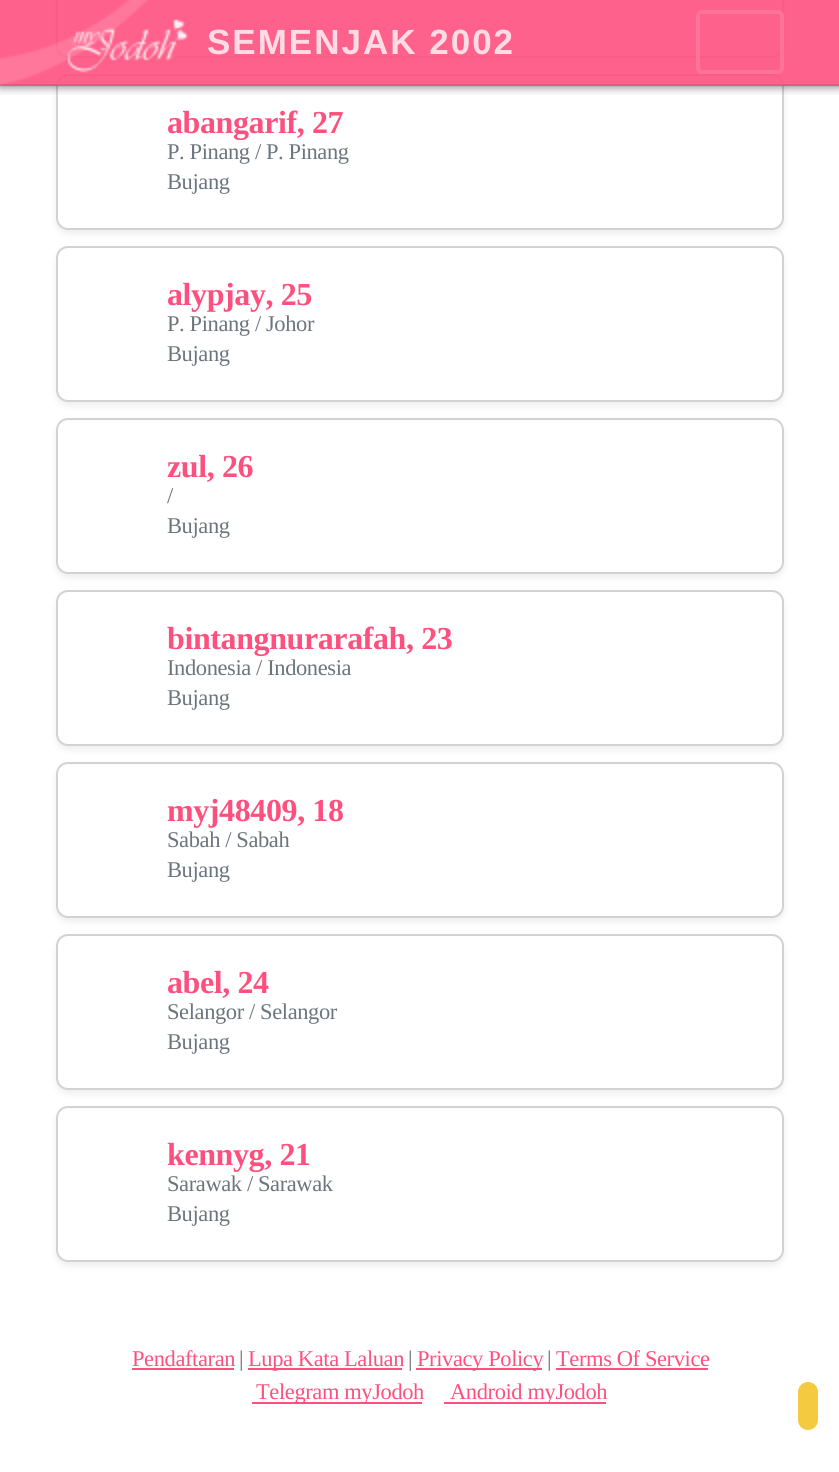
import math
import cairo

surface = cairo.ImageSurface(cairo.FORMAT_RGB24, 839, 1472)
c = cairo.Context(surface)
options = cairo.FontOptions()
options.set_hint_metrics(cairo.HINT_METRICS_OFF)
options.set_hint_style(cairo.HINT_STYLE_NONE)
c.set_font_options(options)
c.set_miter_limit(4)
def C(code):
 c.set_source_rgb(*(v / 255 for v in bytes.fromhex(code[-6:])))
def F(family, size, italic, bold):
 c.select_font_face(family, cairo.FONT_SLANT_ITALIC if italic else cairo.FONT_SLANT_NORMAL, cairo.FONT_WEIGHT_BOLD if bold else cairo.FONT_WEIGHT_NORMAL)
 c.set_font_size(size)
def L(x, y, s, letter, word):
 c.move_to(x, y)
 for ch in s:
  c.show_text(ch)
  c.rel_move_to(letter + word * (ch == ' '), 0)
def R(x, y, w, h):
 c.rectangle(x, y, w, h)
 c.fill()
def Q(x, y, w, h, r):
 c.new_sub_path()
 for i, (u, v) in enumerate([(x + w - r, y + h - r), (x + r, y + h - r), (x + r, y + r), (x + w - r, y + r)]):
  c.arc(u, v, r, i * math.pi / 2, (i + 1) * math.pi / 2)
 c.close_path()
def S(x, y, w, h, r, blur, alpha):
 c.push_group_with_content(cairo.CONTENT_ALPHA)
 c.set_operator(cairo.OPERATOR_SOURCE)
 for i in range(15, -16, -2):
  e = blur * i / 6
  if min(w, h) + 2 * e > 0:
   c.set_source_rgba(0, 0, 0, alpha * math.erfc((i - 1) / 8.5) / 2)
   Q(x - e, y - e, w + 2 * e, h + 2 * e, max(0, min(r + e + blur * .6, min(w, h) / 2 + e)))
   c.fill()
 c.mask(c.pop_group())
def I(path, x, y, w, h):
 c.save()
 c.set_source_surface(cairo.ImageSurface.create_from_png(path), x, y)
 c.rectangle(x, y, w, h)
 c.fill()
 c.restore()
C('ffffff')
c.paint()
c.save()
c.set_fill_rule(cairo.FILL_RULE_EVEN_ODD)
c.new_path()
c.move_to(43,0)
c.line_to(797,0)
c.line_to(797,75)
c.line_to(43,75)
c.close_path()
c.move_to(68,-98)
c.line_to(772,-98)
c.curve_to(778.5,-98,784,-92.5,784,-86)
c.line_to(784,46)
c.curve_to(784,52.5,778.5,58,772,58)
c.line_to(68,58)
c.curve_to(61.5,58,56,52.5,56,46)
c.line_to(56,-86)
c.curve_to(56,-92.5,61.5,-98,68,-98)
c.close_path()
c.clip()
C('000000')
S(56,-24,728,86,12,4,.07)
c.restore()
Q(57,-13,726,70,11)
C('d2d2d2')
c.stroke()
C('000000')
S(56,78,728,156,12,4,.07)
C('ffffff')
Q(57,75,726,154,11)
c.fill_preserve()
C('d2d2d2')
c.stroke()
c.save()
c.rectangle(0,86,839,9)
c.clip()
C('000000')
S(0,0,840,86,0,5,.6)
c.restore()
I('1.png',0,0,839,86)
c.set_source_rgba(0,0,0,0.09)
R(0,84,839,2)
I('2.png',67,19,122,54)
F('Liberation Sans',35,0,1)
C('ffdce5')
L(207,54,'SEMENJAK 2002',2,0)
Q(698,12,84,60,4)
C('fe7399')
c.set_line_width(4)
c.stroke()
F('Liberation Serif',32,0,1)
C('fe507e')
L(167,133,'abangarif, 27',-.4,0)
F('Liberation Serif',22.5,0,0)
C('6c757d')
L(167,159,'P. Pinang / P. Pinang',-.4,0)
L(167,189,'Bujang',-.4,0)
C('000000')
S(56,250,728,156,12,4,.07)
C('ffffff')
Q(57,247,726,154,11)
c.fill_preserve()
C('d2d2d2')
c.set_line_width(2)
c.stroke()
F('Liberation Serif',32,0,1)
C('fe507e')
L(167,305,'alypjay, 25',-.4,0)
F('Liberation Serif',22.5,0,0)
C('6c757d')
L(167,331,'P. Pinang / Johor',-.4,0)
L(167,361,'Bujang',-.4,0)
C('000000')
S(56,422,728,156,12,4,.07)
C('ffffff')
Q(57,419,726,154,11)
c.fill_preserve()
C('d2d2d2')
c.stroke()
F('Liberation Serif',32,0,1)
C('fe507e')
L(167,477,'zul, 26',-.4,0)
F('Liberation Serif',22.5,0,0)
C('6c757d')
L(167,503,'/',-.4,0)
L(167,533,'Bujang',-.4,0)
C('000000')
S(56,594,728,156,12,4,.07)
C('ffffff')
Q(57,591,726,154,11)
c.fill_preserve()
C('d2d2d2')
c.stroke()
F('Liberation Serif',32,0,1)
C('fe507e')
L(167,649,'bintangnurarafah, 23',-.4,0)
F('Liberation Serif',22.5,0,0)
C('6c757d')
L(167,675,'Indonesia / Indonesia',-.4,0)
L(167,705,'Bujang',-.4,0)
C('000000')
S(56,766,728,156,12,4,.07)
C('ffffff')
Q(57,763,726,154,11)
c.fill_preserve()
C('d2d2d2')
c.stroke()
F('Liberation Serif',32,0,1)
C('fe507e')
L(167,821,'myj48409, 18',-.4,0)
F('Liberation Serif',22.5,0,0)
C('6c757d')
L(167,847,'Sabah / Sabah',-.4,0)
L(167,877,'Bujang',-.4,0)
C('000000')
S(56,938,728,156,12,4,.07)
C('ffffff')
Q(57,935,726,154,11)
c.fill_preserve()
C('d2d2d2')
c.stroke()
F('Liberation Serif',32,0,1)
C('fe507e')
L(167,993,'abel, 24',-.4,0)
F('Liberation Serif',22.5,0,0)
C('6c757d')
L(167,1019,'Selangor / Selangor',-.4,0)
L(167,1049,'Bujang',-.4,0)
C('000000')
S(56,1110,728,156,12,4,.07)
C('ffffff')
Q(57,1107,726,154,11)
c.fill_preserve()
C('d2d2d2')
c.stroke()
F('Liberation Serif',32,0,1)
C('fe507e')
L(167,1165,'kennyg, 21',-.4,0)
F('Liberation Serif',22.5,0,0)
C('6c757d')
L(167,1191,'Sarawak / Sarawak',-.4,0)
L(167,1221,'Bujang',-.4,0)
C('fe507e')
L(132,1366,'Pendaftaran',-.4,0)
R(132,1368,102,2)
C('6d6c6c')
L(239,1366,'|',-.4,0)
C('fe507e')
R(248,1368,154,2)
L(248,1366,'Lupa Kata Laluan',-.4,0)
C('6d6c6c')
L(408,1366,'|',-.4,0)
C('fe507e')
R(416,1368,126,2)
L(417,1366,'Privacy Policy',-.4,0)
C('6d6c6c')
L(547,1366,'|',-.4,0)
C('fe507e')
L(556,1366,'Terms Of Service',-.4,0)
R(556,1368,152,2)
R(252,1402,170,2)
L(256,1399,'Telegram myJodoh',-.4,0)
R(444,1402,162,2)
L(450,1399,'Android myJodoh',-.4,0)
C('f4ca40')
Q(797,1381,22,50,11)
c.fill_preserve()
C('ffffff')
c.stroke()
surface.write_to_png('o.png')
